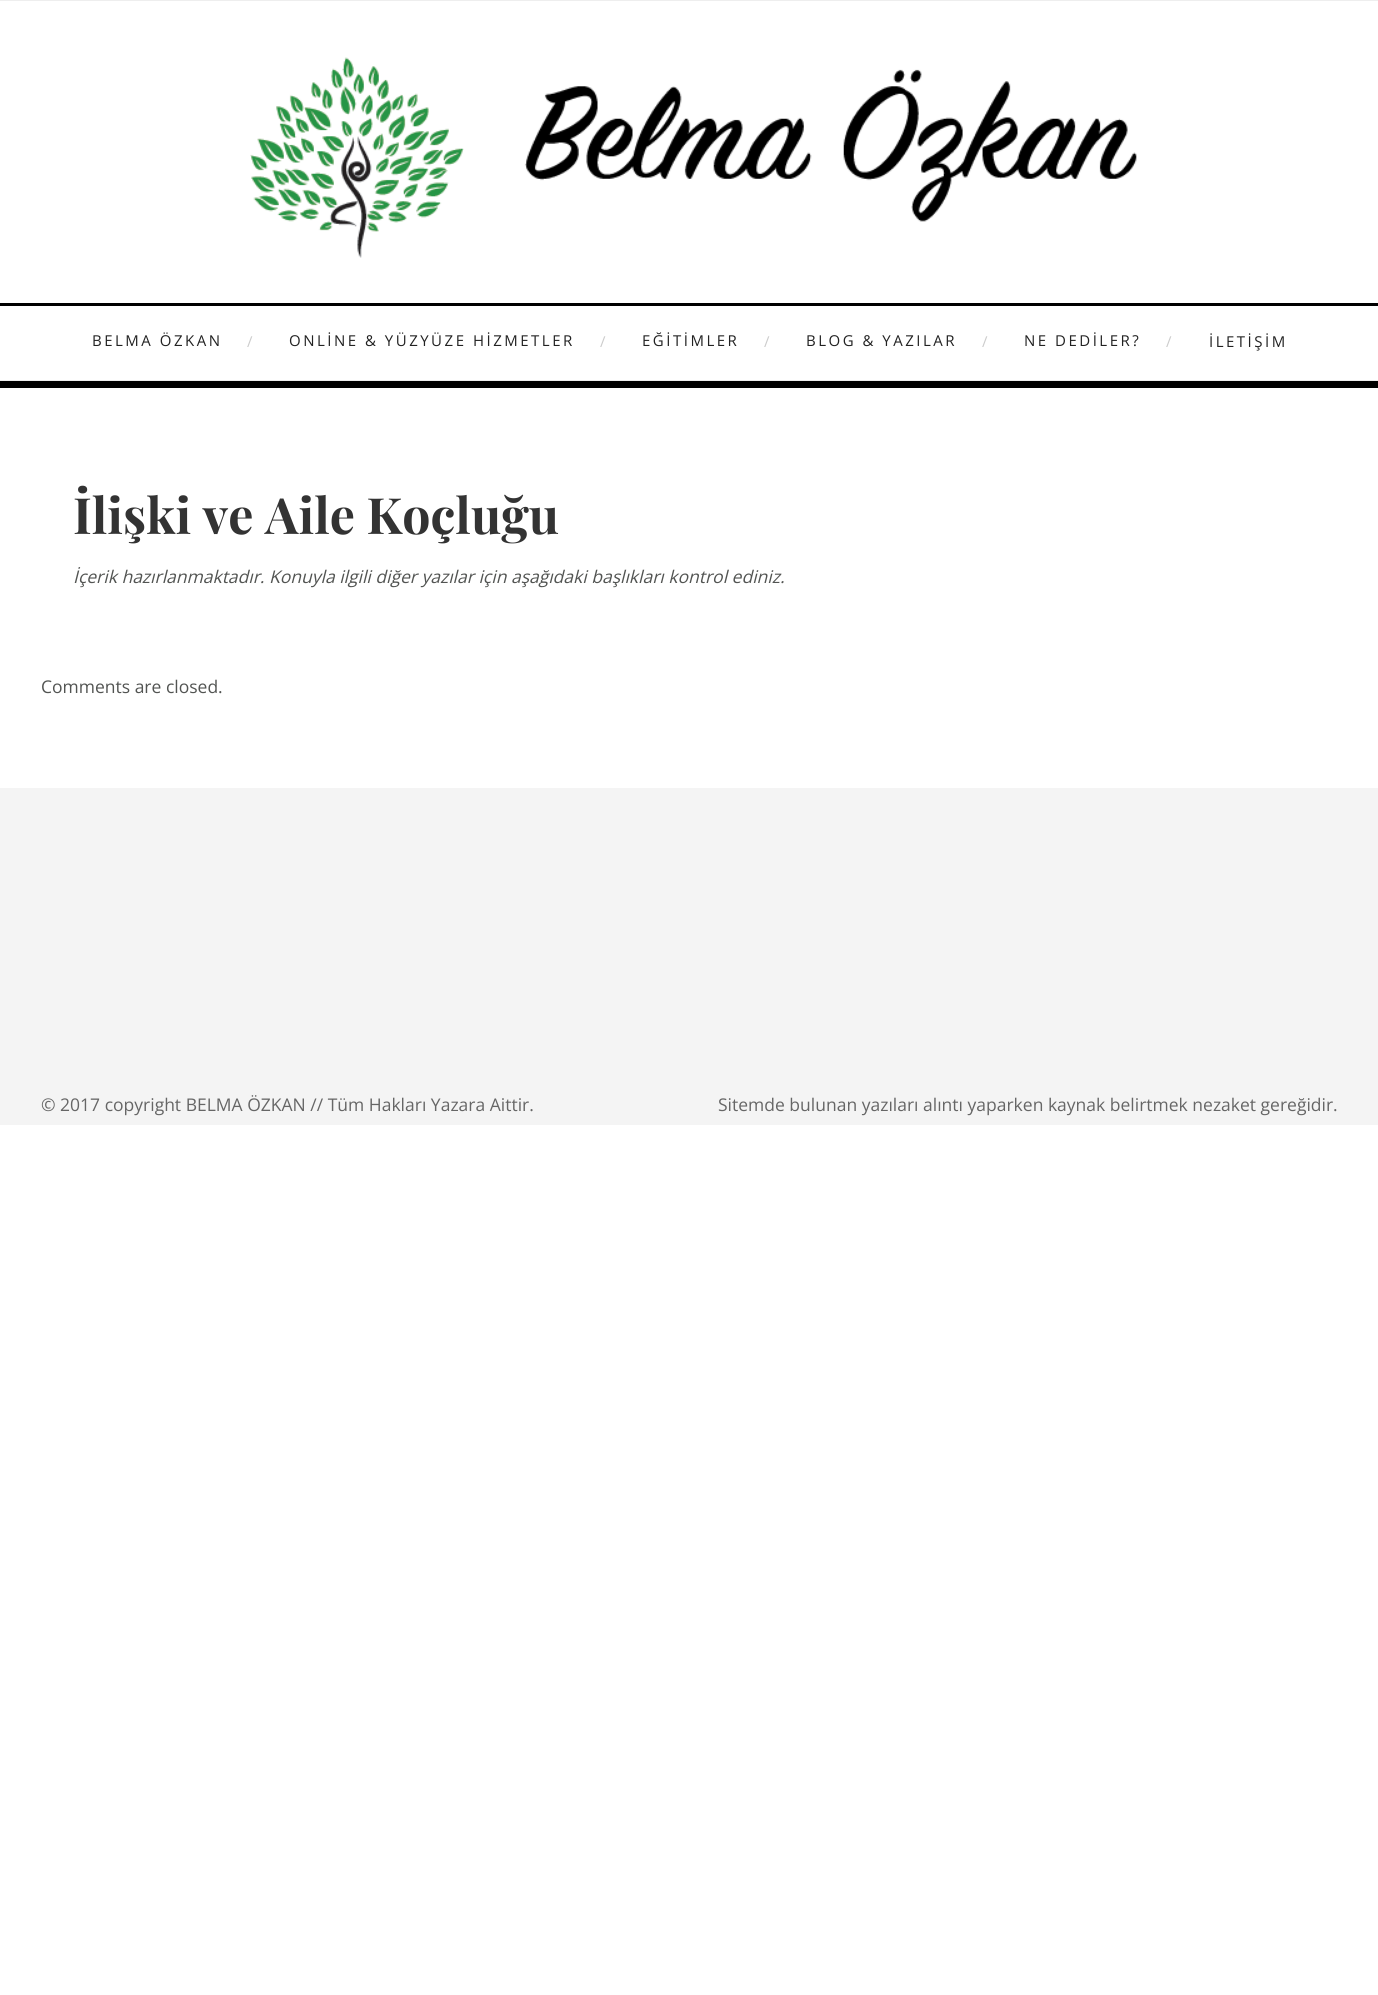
import math
import cairo

surface = cairo.ImageSurface(cairo.FORMAT_RGB24, 1378, 1995)
c = cairo.Context(surface)
options = cairo.FontOptions()
options.set_hint_metrics(cairo.HINT_METRICS_OFF)
options.set_hint_style(cairo.HINT_STYLE_NONE)
c.set_font_options(options)
c.set_miter_limit(4)
def C(code):
 c.set_source_rgb(*(v / 255 for v in bytes.fromhex(code[-6:])))
def F(family, size, italic, bold):
 c.select_font_face(family, cairo.FONT_SLANT_ITALIC if italic else cairo.FONT_SLANT_NORMAL, cairo.FONT_WEIGHT_BOLD if bold else cairo.FONT_WEIGHT_NORMAL)
 c.set_font_size(size)
def T(x, y, s):
 c.move_to(x, y)
 c.show_text(s)
def L(x, y, s, letter, word):
 c.move_to(x, y)
 for ch in s:
  c.show_text(ch)
  c.rel_move_to(letter + word * (ch == ' '), 0)
def R(x, y, w, h):
 c.rectangle(x, y, w, h)
 c.fill()
def I(path, x, y, w, h):
 c.save()
 c.set_source_surface(cairo.ImageSurface.create_from_png(path), x, y)
 c.rectangle(x, y, w, h)
 c.fill()
 c.restore()
C('ffffff')
c.paint()
C('eeeeee')
R(0,0,1378,1)
I('1.png',250,57,887,201)
C('000000')
R(0,303,1378,3)
R(0,381,1378,7)
C('eeeeee')
R(0,380,1378,1)
F('Open Sans',15,0,0)
C('222222')
L(92,346,'BELMA ÖZKAN',2.5,0)
C('cccccc')
L(247,347,'/',2.5,0)
C('222222')
L(289,346,'ONLİNE & YÜZYÜZE HİZMETLER',2.5,0)
C('cccccc')
L(600,347,'/',2.5,0)
C('222222')
L(642,346,'EĞİTİMLER',2.5,0)
C('cccccc')
L(764,347,'/',2.5,0)
C('222222')
L(806,346,'BLOG & YAZILAR',2.5,0)
C('cccccc')
L(982,347,'/',2.5,0)
C('222222')
L(1024,346,'NE DEDİLER?',2.5,0)
C('cccccc')
L(1166,347,'/',2.5,0)
C('222222')
L(1209,347,'İLETİŞİM',2.5,0)
F('Playfair Display',50,0,1)
C('333333')
T(73,534,'İlişki ve Aile Koçluğu')
F('Open Sans',17.5,1,0)
C('525452')
T(73,583,'İçerik hazırlanmaktadır. Konuyla ilgili diğer yazılar için aşağıdaki başlıkları kontrol ediniz.')
F('Open Sans',17.5,0,0)
T(41,693,'Comments are closed.')
C('f4f4f4')
R(0,788,1378,337)
C('666666')
T(41,1111,'© 2017 copyright BELMA ÖZKAN // Tüm Hakları Yazara Aittir.')
T(718,1111,'Sitemde bulunan yazıları alıntı yaparken kaynak belirtmek nezaket gereğidir.')
surface.write_to_png('o.png')
